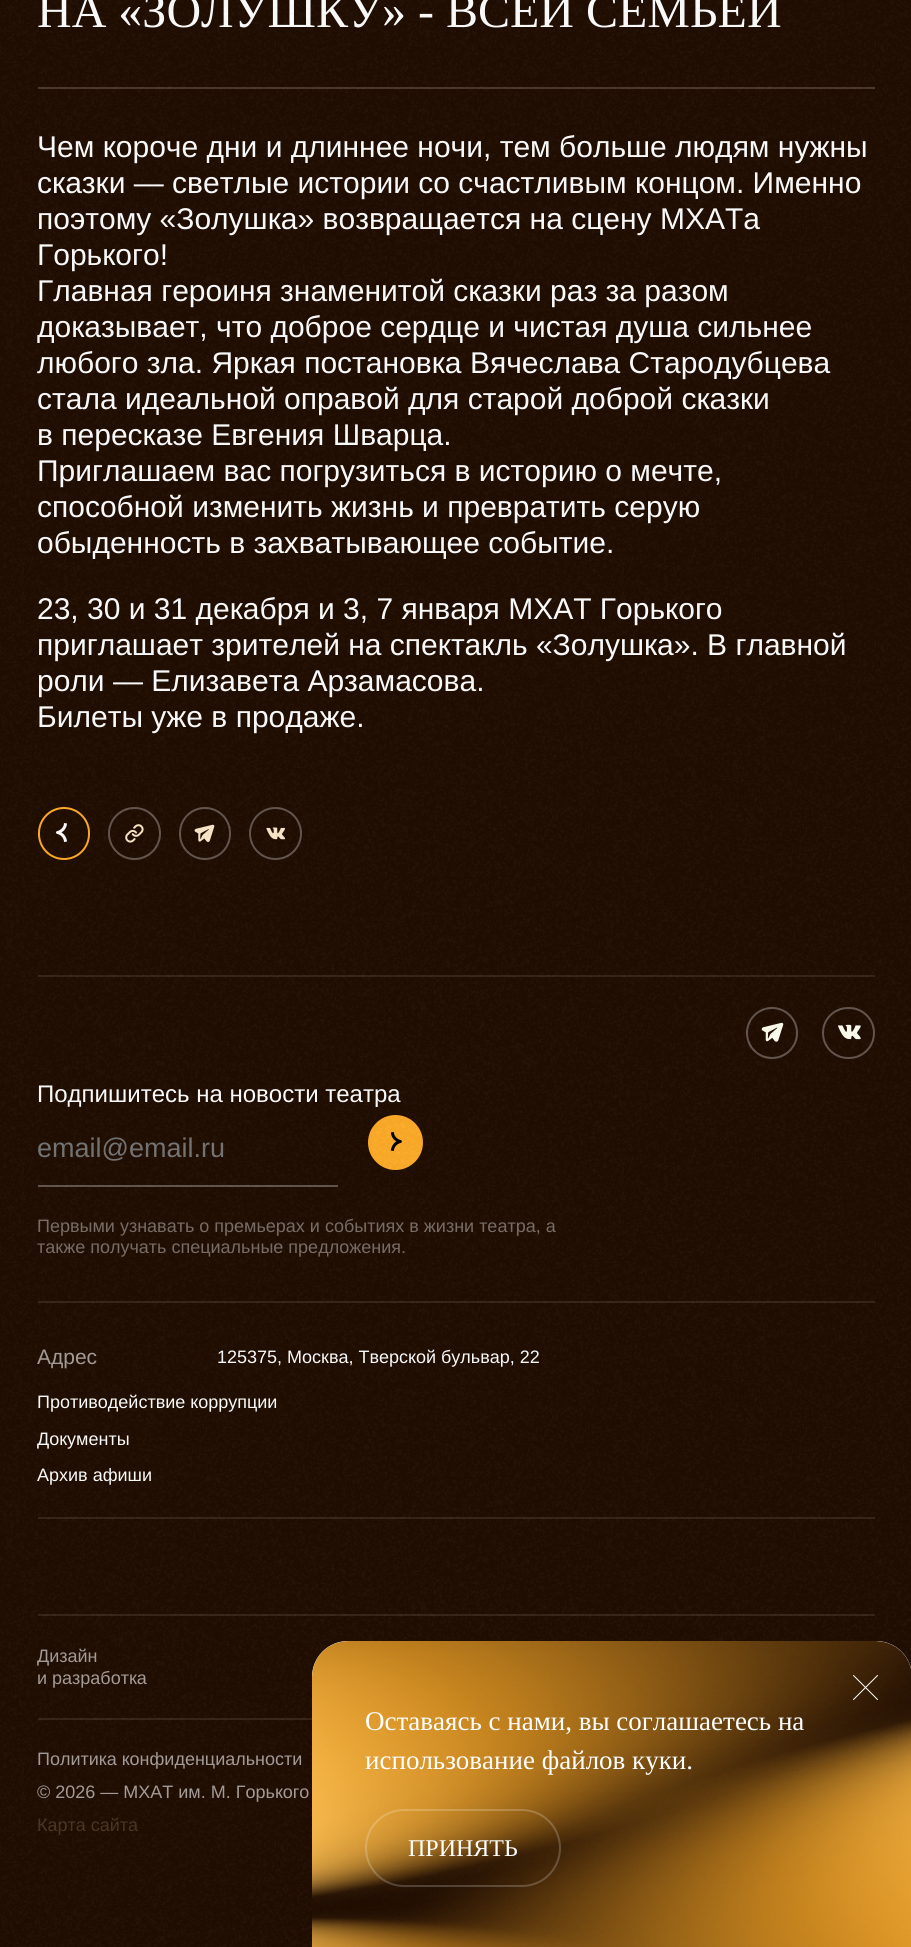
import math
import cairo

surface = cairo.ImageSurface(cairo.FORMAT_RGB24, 911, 1947)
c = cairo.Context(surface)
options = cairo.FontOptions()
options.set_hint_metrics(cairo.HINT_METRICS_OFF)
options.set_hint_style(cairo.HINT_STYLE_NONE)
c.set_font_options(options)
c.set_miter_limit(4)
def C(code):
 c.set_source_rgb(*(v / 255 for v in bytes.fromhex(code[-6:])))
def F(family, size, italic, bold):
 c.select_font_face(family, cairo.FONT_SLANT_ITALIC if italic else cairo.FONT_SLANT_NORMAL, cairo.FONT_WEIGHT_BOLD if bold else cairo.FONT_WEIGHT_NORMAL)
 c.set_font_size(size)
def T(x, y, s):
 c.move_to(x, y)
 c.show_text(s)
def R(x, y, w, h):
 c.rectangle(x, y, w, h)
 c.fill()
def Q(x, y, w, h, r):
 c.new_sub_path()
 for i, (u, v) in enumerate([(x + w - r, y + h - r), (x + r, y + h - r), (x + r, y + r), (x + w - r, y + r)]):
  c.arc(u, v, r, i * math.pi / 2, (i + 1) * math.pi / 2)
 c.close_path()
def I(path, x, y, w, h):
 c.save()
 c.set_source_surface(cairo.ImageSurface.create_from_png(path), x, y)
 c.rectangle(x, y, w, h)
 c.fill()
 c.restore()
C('200d02')
c.paint()
C('4c392a')
R(38,87,837,2)
F('Liberation Serif',48,0,0)
C('ffffff')
T(37,27,'НА «ЗОЛУШКУ» - ВСЕЙ СЕМЬЕЙ')
F('Liberation Sans',30,0,0)
T(37,157,'Чем короче дни и длиннее ночи, тем больше людям нужны')
T(37,193,'сказки — светлые истории со счастливым концом. Именно')
T(37,229,'поэтому «Золушка» возвращается на сцену МХАТа')
T(37,265,'Горького!')
T(37,301,'Главная героиня знаменитой сказки раз за разом')
T(37,337,'доказывает, что доброе сердце и чистая душа сильнее')
T(37,373,'любого зла. Яркая постановка Вячеслава Стародубцева')
T(37,409,'стала идеальной оправой для старой доброй сказки')
T(37,445,'в пересказе Евгения Шварца.')
T(37,481,'Приглашаем вас погрузиться в историю о мечте,')
T(37,517,'способной изменить жизнь и превратить серую')
T(37,553,'обыденность в захватывающее событие.')
T(37,619,'23, 30 и 31 декабря и 3, 7 января МХАТ Горького')
T(37,655,'приглашает зрителей на спектакль «Золушка». В главной')
T(37,691,'роли — Елизавета Арзамасова.')
T(37,727,'Билеты уже в продаже.')
Q(39,808,50,51,25)
C('ffac28')
c.stroke()
I('2.png',56,823,11,19)
I('3.png',125,824,19,19)
c.arc(134.5,833.5,25.5,0,2 * math.pi)
C('63564e')
c.stroke()
I('4.png',194,824,21,18)
Q(180,808,50,51,25)
c.stroke()
I('5.png',266,827,19,13)
c.arc(275.5,833.5,25.5,0,2 * math.pi)
c.stroke()
C('36251b')
R(38,975,837,2)
R(38,1614,837,2)
I('6.png',761,1022,23,20)
c.arc(772,1033,25,0,2 * math.pi)
C('63564e')
c.stroke()
I('7.png',838,1024,23,16)
Q(823,1008,51,50,25)
c.stroke()
C('36251b')
R(38,1301,837,2)
F('Liberation Sans',24,0,0)
C('ffffff')
T(37,1102,'Подпишитесь на новости театра')
C('63564e')
R(38,1185,300,2)
F('Liberation Sans',27,0,0)
C('757575')
T(37,1157,'email@email.ru')
C('ffac28')
c.new_path()
c.arc(395.5,1142.5,26.5,0,2 * math.pi)
c.fill_preserve()
c.stroke()
I('8.png',390,1132,12,19)
F('Liberation Sans',18,0,0)
C('796e67')
T(37,1232,'Первыми узнавать о премьерах и событиях в жизни театра, а')
T(37,1253,'также получать специальные предложения.')
F('Liberation Sans',21,0,0)
C('a69e9a')
T(37,1364,'Адрес')
F('Liberation Sans',18,0,0)
C('ffffff')
T(217,1363,'125375, Москва, Тверской бульвар, 22')
T(37,1408,'Противодействие коррупции')
T(37,1445,'Документы')
T(37,1481,'Архив афиши')
C('36251b')
R(38,1517,837,2)
R(38,1718,274,2)
C('a69e9a')
T(37,1662,'Дизайн')
T(37,1684,'и разработка')
T(37,1765,'Политика конфиденциальности')
T(37,1798,'© 2026 — МХАТ им. М. Горького')
C('493625')
T(37,1831,'Карта сайта')
I('1.png',0,0,911,1947)
C('ffffff')
c.new_path()
c.move_to(348,1641)
c.line_to(876,1641)
c.curve_to(896,1641,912,1657,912,1677)
c.line_to(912,1947)
c.line_to(312,1947)
c.line_to(312,1677)
c.curve_to(312,1657,328,1641,348,1641)
c.close_path()
c.fill()
I('9.png',312,1641,599,306)
c.new_path()
c.move_to(877.5,1675.5)
c.line_to(853.5,1699.5)
c.move_to(853.5,1675.5)
c.line_to(877.5,1699.5)
c.set_line_width(1)
c.set_line_cap(cairo.LINE_CAP_ROUND)
c.set_line_join(cairo.LINE_JOIN_ROUND)
c.stroke()
F('Liberation Serif',27,0,0)
T(365,1730,'Оставаясь с нами, вы соглашаетесь на')
T(365,1769,'использование файлов куки.')
Q(366,1810,194,76,38)
c.set_source_rgba(1,1,1,0.2)
c.set_line_width(2)
c.set_line_cap(cairo.LINE_CAP_BUTT)
c.set_line_join(cairo.LINE_JOIN_MITER)
c.stroke()
F('Liberation Serif',24,0,0)
C('ffffff')
T(408,1856,'ПРИНЯТЬ')
surface.write_to_png('o.png')
